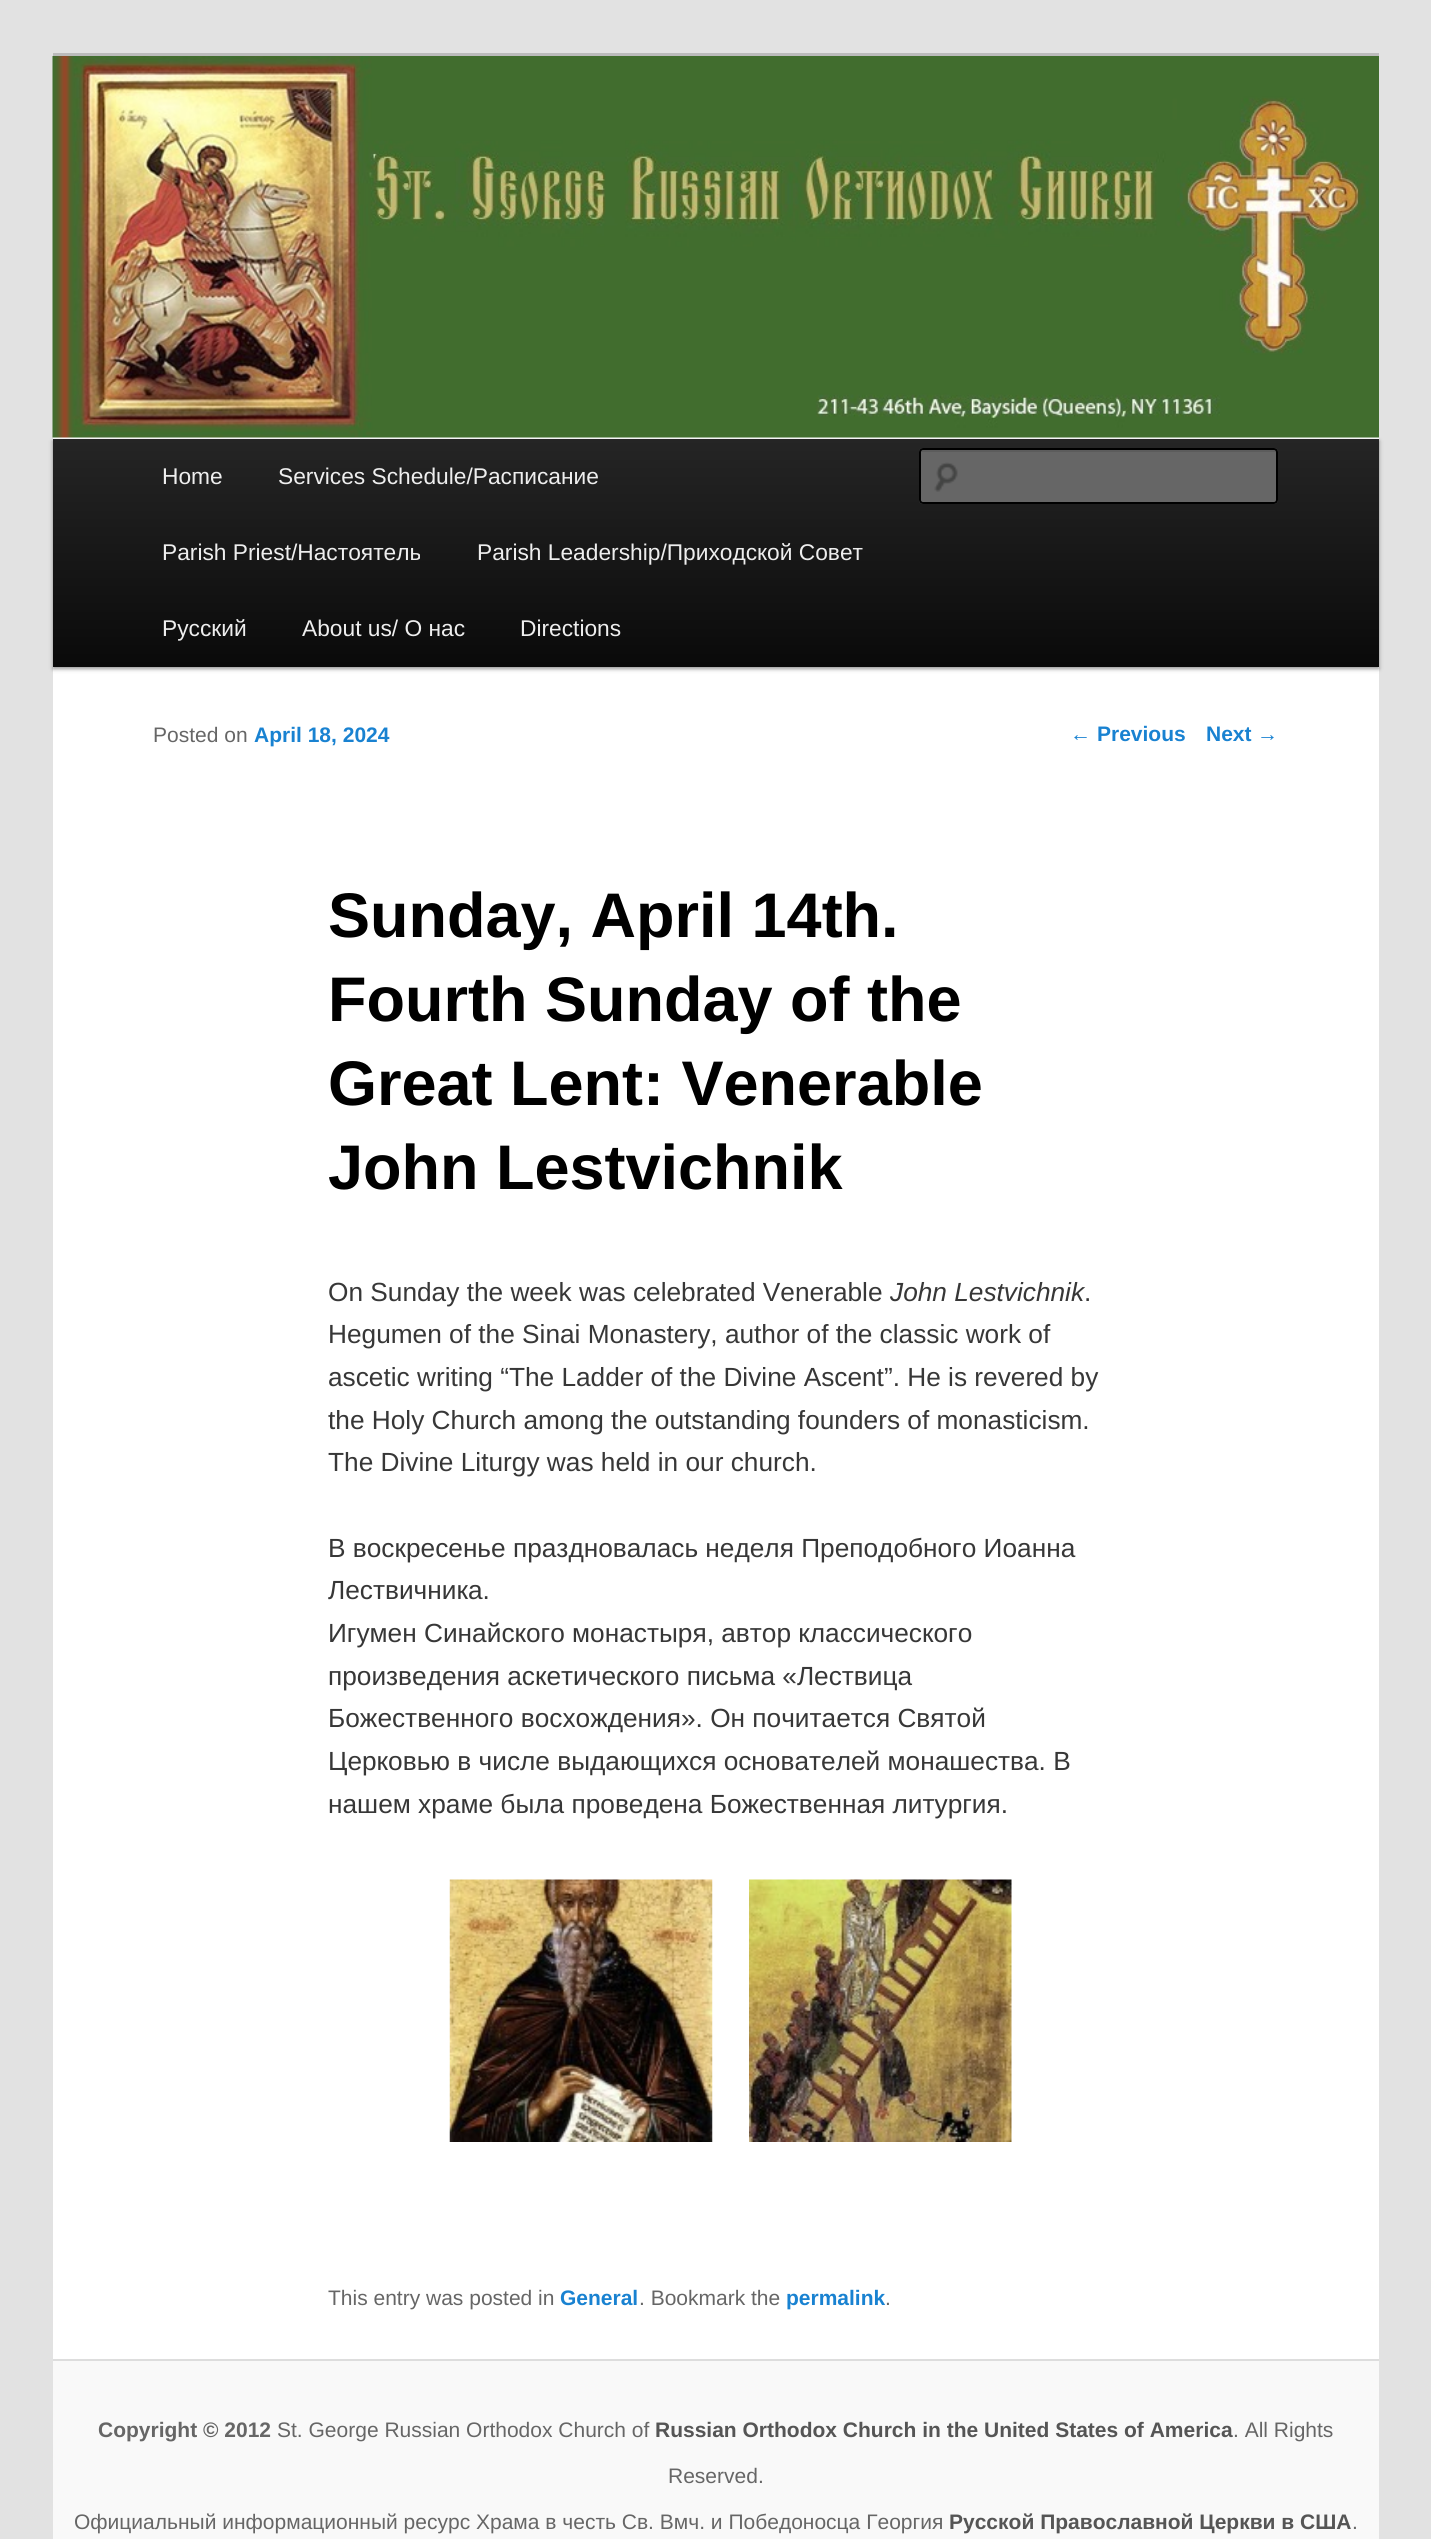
import math
import cairo

surface = cairo.ImageSurface(cairo.FORMAT_RGB24, 1431, 2539)
c = cairo.Context(surface)
options = cairo.FontOptions()
options.set_hint_metrics(cairo.HINT_METRICS_OFF)
options.set_hint_style(cairo.HINT_STYLE_NONE)
c.set_font_options(options)
c.set_miter_limit(4)
def C(code):
 c.set_source_rgb(*(v / 255 for v in bytes.fromhex(code[-6:])))
def F(family, size, italic, bold):
 c.select_font_face(family, cairo.FONT_SLANT_ITALIC if italic else cairo.FONT_SLANT_NORMAL, cairo.FONT_WEIGHT_BOLD if bold else cairo.FONT_WEIGHT_NORMAL)
 c.set_font_size(size)
def T(x, y, s):
 c.move_to(x, y)
 c.show_text(s)
def R(x, y, w, h):
 c.rectangle(x, y, w, h)
 c.fill()
def Q(x, y, w, h, r):
 c.new_sub_path()
 for i, (u, v) in enumerate([(x + w - r, y + h - r), (x + r, y + h - r), (x + r, y + r), (x + w - r, y + r)]):
  c.arc(u, v, r, i * math.pi / 2, (i + 1) * math.pi / 2)
 c.close_path()
def S(x, y, w, h, r, blur, alpha):
 c.push_group_with_content(cairo.CONTENT_ALPHA)
 c.set_operator(cairo.OPERATOR_SOURCE)
 for i in range(15, -16, -2):
  e = blur * i / 6
  if min(w, h) + 2 * e > 0:
   c.set_source_rgba(0, 0, 0, alpha * math.erfc((i - 1) / 8.5) / 2)
   Q(x - e, y - e, w + 2 * e, h + 2 * e, max(0, min(r + e + blur * .6, min(w, h) / 2 + e)))
   c.fill()
 c.mask(c.pop_group())
def I(path, x, y, w, h):
 c.save()
 c.set_source_surface(cairo.ImageSurface.create_from_png(path), x, y)
 c.rectangle(x, y, w, h)
 c.fill()
 c.restore()
C('e2e2e2')
c.paint()
C('ffffff')
R(53,437,1326,1922)
C('bbbbbb')
R(53,53,1326,3)
C('000000')
S(53,441,1326,228,0,2,.4)
I('1.png',52,56,1327,382)
gradient = cairo.LinearGradient(716,439,716,667)
gradient.add_color_stop_rgba(0,0.145,0.145,0.145,1)
gradient.add_color_stop_rgba(1,0.039,0.039,0.039,1)
c.set_source(gradient)
R(53,439,1326,228)
F('Liberation Sans',22.75,0,0)
C('eeeeee')
T(162,484,'Home')
T(278,484,'Services Schedule/Расписание')
T(162,560,'Parish Priest/Настоятель')
T(477,560,'Parish Leadership/Приходской Совет')
T(162,636,'Русский')
T(302,636,'About us/ О нас')
T(520,636,'Directions')
C('666666')
Q(919,448,359,56,4)
c.fill()
I('2.png',934,462,24,30)
C('5c5c5c')
c.new_path()
c.move_to(922,452)
c.line_to(1274,452)
c.curve_to(1275,452,1276,452,1276,453)
c.line_to(1276,451)
c.line_to(1274,450)
c.line_to(923,450)
c.curve_to(922,450,921,451,921,452)
c.close_path()
c.fill()
Q(920,449,357,54,3)
C('000000')
c.stroke()
F('Liberation Sans',21,0,0)
C('666666')
T(153,742,'Posted on')
F('Liberation Sans',21,0,1)
C('1982d1')
T(254,742,'April 18, 2024')
F('Liberation Sans',63,0,1)
C('000000')
T(328,937,'Sunday, April 14th.')
T(328,1021,'Fourth Sunday of the')
T(328,1105,'Great Lent: Venerable')
T(328,1189,'John Lestvichnik')
F('Liberation Sans',26.25,0,0)
C('373737')
T(328,1301,'On Sunday the week was celebrated Venerable')
F('Liberation Sans',26.25,1,0)
T(890,1301,'John Lestvichnik')
F('Liberation Sans',26.25,0,0)
T(1084,1301,'.')
T(328,1343,'Hegumen of the Sinai Monastery, author of the classic work of')
T(328,1386,'ascetic writing “The Ladder of the Divine Ascent”. He is revered by')
T(328,1429,'the Holy Church among the outstanding founders of monasticism.')
T(328,1471,'The Divine Liturgy was held in our church.')
T(328,1557,'В воскресенье праздновалась неделя Преподобного Иоанна')
T(328,1599,'Лествичника.')
T(328,1642,'Игумен Синайского монастыря, автор классического')
T(328,1685,'произведения аскетического письма «Лествица')
T(328,1727,'Божественного восхождения». Он почитается Святой')
T(328,1770,'Церковью в числе выдающихся основателей монашества. В')
T(328,1813,'нашем храме была проведена Божественная литургия.')
I('3.png',449,1879,264,263)
I('4.png',749,1879,263,263)
F('Liberation Sans',21,0,0)
C('666666')
T(328,2305,'This entry was posted in')
F('Liberation Sans',21,0,1)
C('1982d1')
T(560,2305,'General')
F('Liberation Sans',21,0,0)
C('666666')
T(639,2305,'. Bookmark the')
F('Liberation Sans',21,0,1)
C('1982d1')
T(786,2305,'permalink')
F('Liberation Sans',21,0,0)
C('666666')
T(885,2305,'.')
C('1982d1')
T(1070,741,'←')
F('Liberation Sans',21,0,1)
T(1097,741,'Previous')
T(1206,741,'Next')
F('Liberation Sans',21,0,0)
T(1257,741,'→')
C('f9f9f9')
R(53,2361,1326,178)
C('dddddd')
R(53,2359,1326,2)
F('Liberation Sans',21,0,1)
C('666666')
T(98,2437,'Copyright © 2012')
F('Liberation Sans',21,0,0)
T(277,2437,'St. George Russian Orthodox Church of')
F('Liberation Sans',21,0,1)
C('555555')
T(655,2437,'Russian Orthodox Church in the United States of America')
F('Liberation Sans',21,0,0)
C('666666')
T(1233,2437,'. All Rights')
T(668,2483,'Reserved.')
T(74,2529,'Официальный информационный ресурс Храма в честь Св. Вмч. и Победоносца Георгия')
F('Liberation Sans',21,0,1)
C('555555')
T(949,2529,'Русской Православной Церкви в США')
F('Liberation Sans',21,0,0)
C('666666')
T(1352,2529,'.')
surface.write_to_png('o.png')
